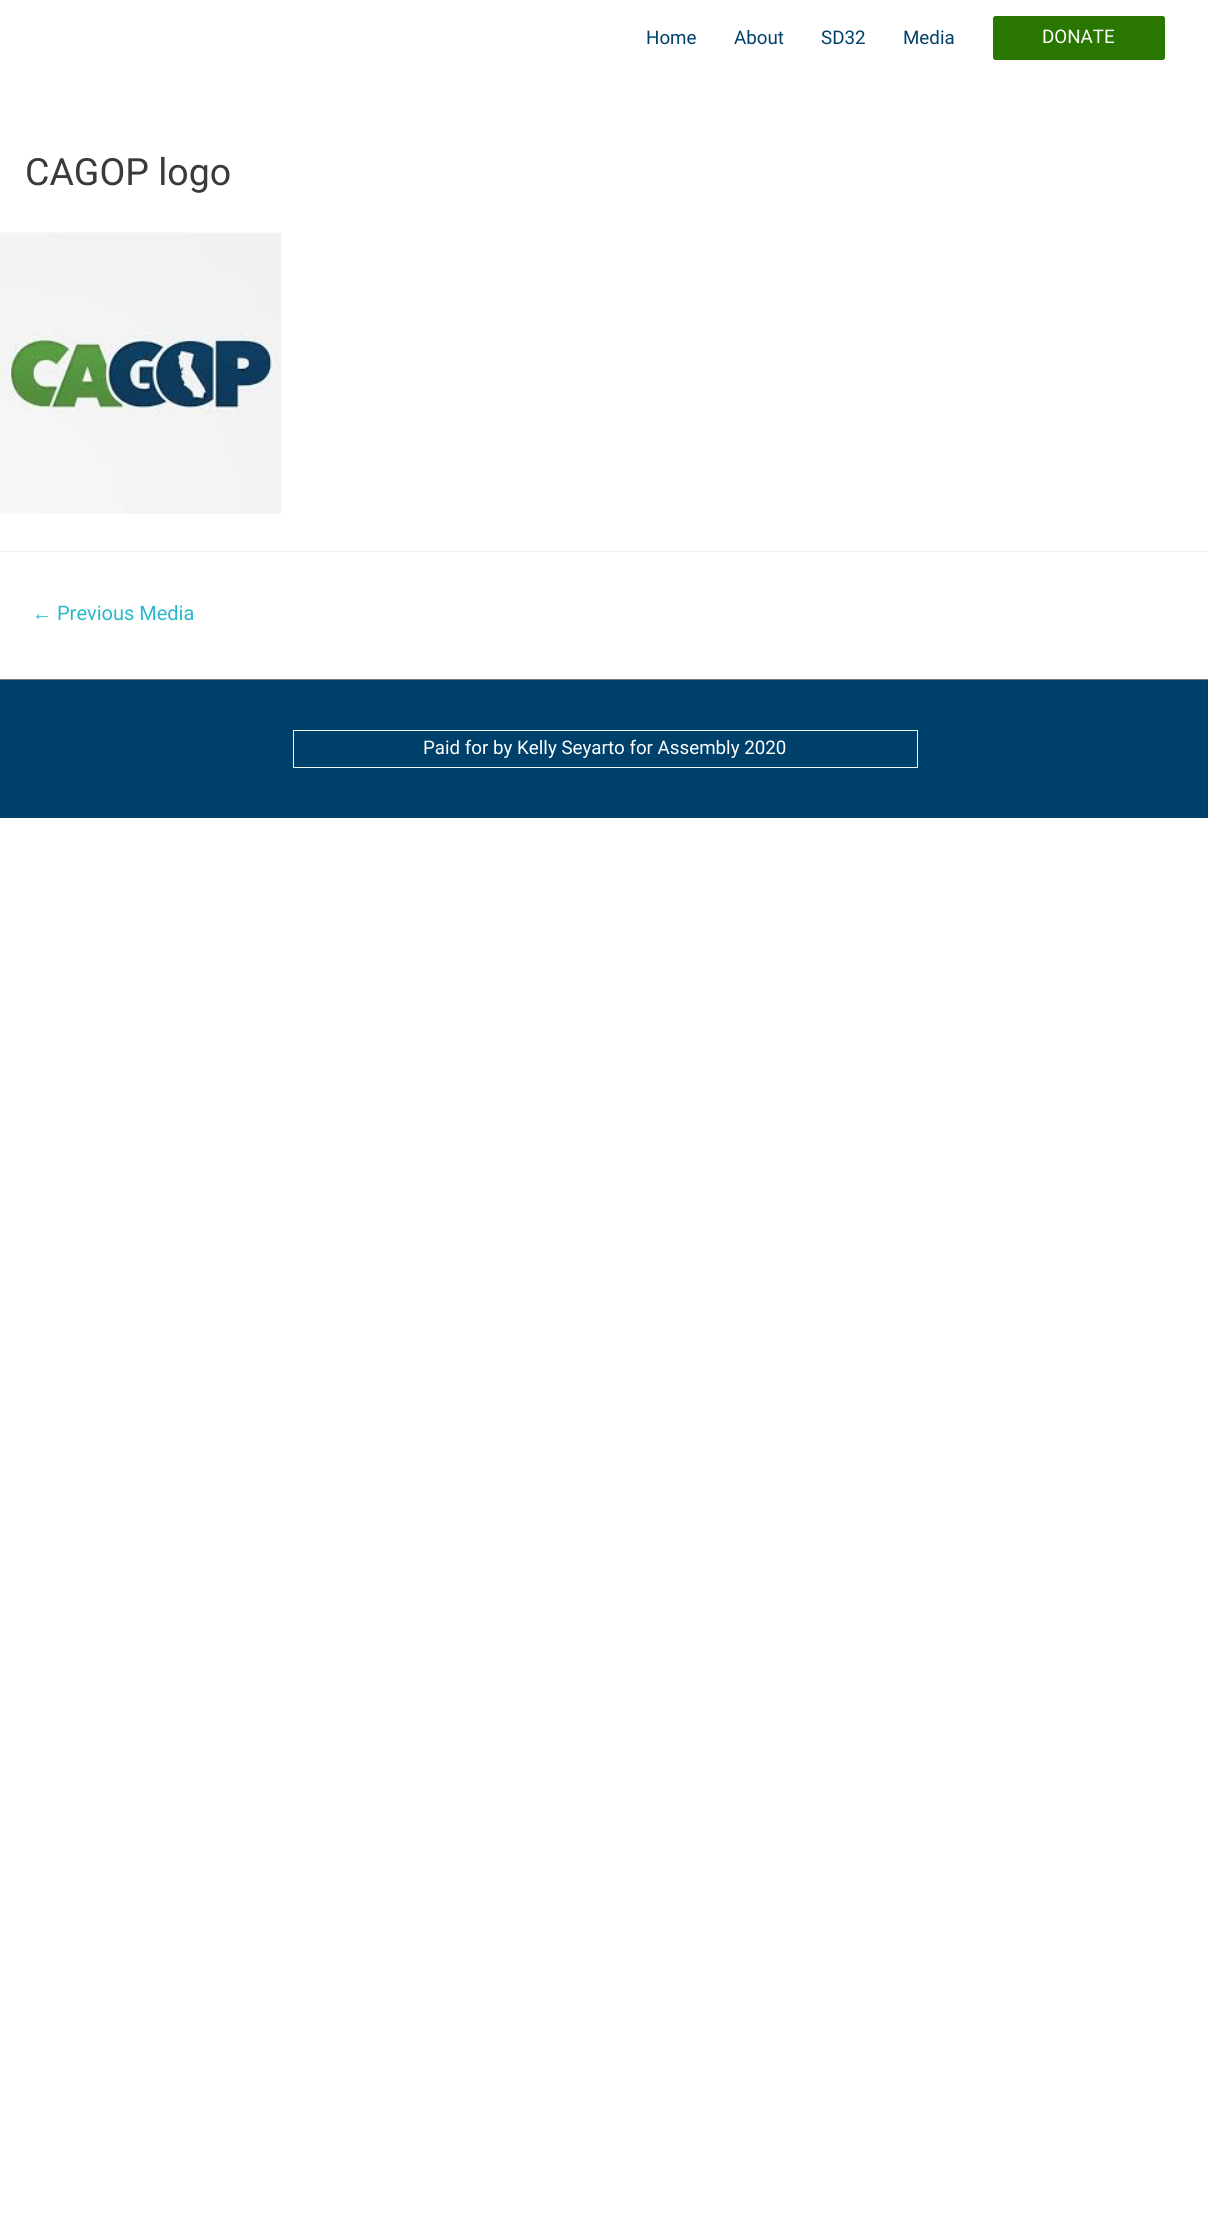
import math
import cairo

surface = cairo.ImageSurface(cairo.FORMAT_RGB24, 1208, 2234)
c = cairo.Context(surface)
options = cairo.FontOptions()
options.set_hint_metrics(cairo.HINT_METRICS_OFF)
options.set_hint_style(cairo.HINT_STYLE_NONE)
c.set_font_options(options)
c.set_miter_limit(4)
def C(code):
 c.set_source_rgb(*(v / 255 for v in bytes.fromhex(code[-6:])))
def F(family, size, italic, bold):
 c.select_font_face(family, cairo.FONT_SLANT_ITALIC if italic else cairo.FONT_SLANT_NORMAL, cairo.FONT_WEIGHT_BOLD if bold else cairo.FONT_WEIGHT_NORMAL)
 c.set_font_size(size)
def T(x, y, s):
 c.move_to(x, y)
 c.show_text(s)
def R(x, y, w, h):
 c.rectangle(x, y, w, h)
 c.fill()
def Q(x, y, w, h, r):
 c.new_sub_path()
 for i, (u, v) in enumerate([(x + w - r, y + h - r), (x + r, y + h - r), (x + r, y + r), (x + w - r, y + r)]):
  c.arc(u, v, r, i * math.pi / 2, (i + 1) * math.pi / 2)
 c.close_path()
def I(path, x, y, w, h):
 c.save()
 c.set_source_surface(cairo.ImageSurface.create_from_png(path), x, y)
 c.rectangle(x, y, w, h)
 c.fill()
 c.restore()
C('ffffff')
c.paint()
F('Roboto',18.75,0,0)
C('00416b')
T(646,44,'Home')
T(734,44,'About')
T(821,44,'SD32')
T(903,44,'Media')
C('297700')
Q(993,16,172,44,2.5)
c.fill()
C('ffffff')
T(1042,43,'DONATE')
F('Roboto',37.5,0,0)
C('3a3a3a')
T(25,185,'CAGOP logo')
I('1.png',0,232,282,282)
C('eeeeee')
R(0,551,1208,1)
F('Liberation Sans',20,0,0)
C('2ab7ca')
T(32,620,'←')
F('Roboto',20,0,0)
T(57,620,'Previous Media')
C('7a7a7a')
R(0,679,1208,1)
C('00416b')
R(0,680,1208,138)
c.rectangle(293.5,730.5,624,37)
C('f1faee')
c.set_line_width(1)
c.stroke()
F('Roboto',18.75,0,0)
C('ffffff')
T(423,754,'Paid for by Kelly Seyarto for Assembly 2020')
surface.write_to_png('o.png')
